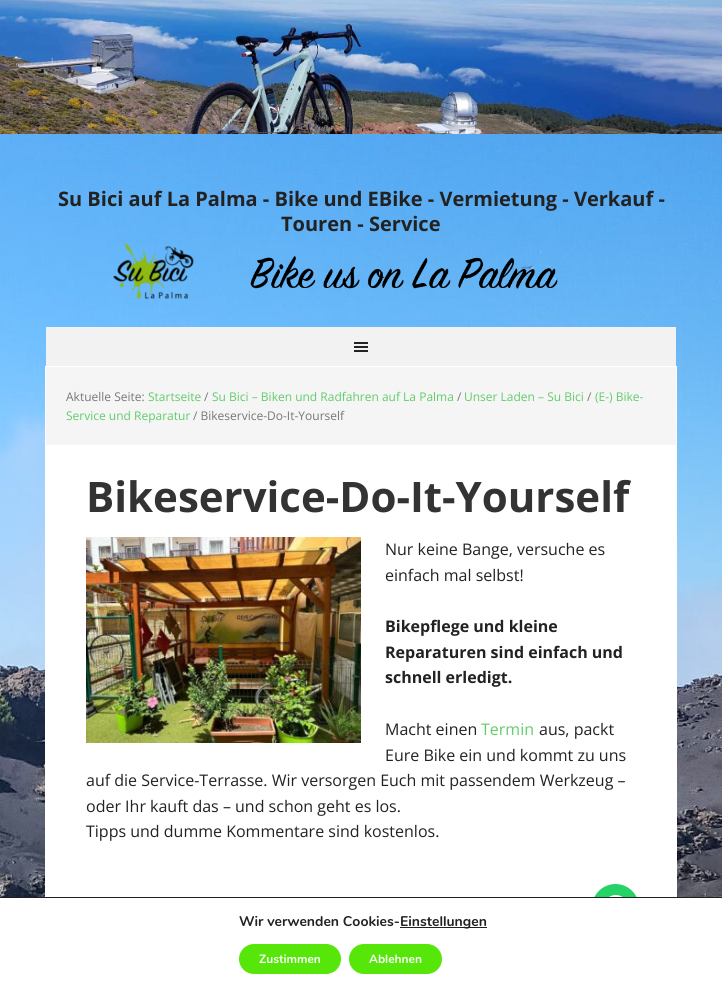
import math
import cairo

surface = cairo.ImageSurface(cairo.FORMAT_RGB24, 722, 992)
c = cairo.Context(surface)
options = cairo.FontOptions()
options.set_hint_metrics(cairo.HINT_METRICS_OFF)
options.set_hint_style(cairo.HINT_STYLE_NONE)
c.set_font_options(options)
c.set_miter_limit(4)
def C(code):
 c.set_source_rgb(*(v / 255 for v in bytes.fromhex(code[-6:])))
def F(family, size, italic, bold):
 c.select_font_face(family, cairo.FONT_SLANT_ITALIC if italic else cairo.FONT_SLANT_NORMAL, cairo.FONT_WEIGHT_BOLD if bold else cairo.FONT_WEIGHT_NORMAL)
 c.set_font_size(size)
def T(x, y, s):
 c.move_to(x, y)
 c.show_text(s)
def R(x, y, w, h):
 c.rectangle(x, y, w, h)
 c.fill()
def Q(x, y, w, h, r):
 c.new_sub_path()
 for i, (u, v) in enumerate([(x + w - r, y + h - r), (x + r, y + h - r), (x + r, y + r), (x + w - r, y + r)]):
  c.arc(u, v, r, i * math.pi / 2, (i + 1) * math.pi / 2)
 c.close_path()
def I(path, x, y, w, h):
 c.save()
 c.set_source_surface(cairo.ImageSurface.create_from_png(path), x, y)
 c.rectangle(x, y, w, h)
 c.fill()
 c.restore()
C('ffffff')
c.paint()
I('1.png',0,134,722,763)
I('2.png',0,0,722,134)
F('Open Sans',20,0,1)
C('222222')
T(58,206,'Su Bici auf La Palma - Bike und EBike - Vermietung - Verkauf -')
T(281,231,'Touren - Service')
I('3.png',113,243,445,57)
C('f2f2f2')
R(46,327,630,39)
I('4.png',354,342,14,10)
c.rectangle(45.5,366.5,631,607)
C('ffffff')
c.set_line_width(1)
c.stroke()
R(46,445,630,452)
C('f5f5f5')
R(46,367,630,78)
F('Open Sans',12,0,0)
C('777777')
T(66,401,'Aktuelle Seite:')
C('60cd69')
T(148,401,'Startseite')
C('777777')
T(204,401,'/')
C('60cd69')
T(212,401,'Su Bici – Biken und Radfahren auf La Palma')
C('777777')
T(457,401,'/')
C('60cd69')
T(464,401,'Unser Laden – Su Bici')
C('777777')
T(587,401,'/')
C('60cd69')
T(595,401,'(E-) Bike-')
T(66,420,'Service und Reparatur')
C('777777')
T(193,420,'/ Bikeservice-Do-It-Yourself')
F('Open Sans',42,0,1)
C('333333')
T(86,512,'Bikeservice-Do-It-Yourself')
I('5.png',86,537,275,206)
F('Open Sans',16,0,0)
C('222222')
T(385,555,'Nur keine Bange, versuche es')
T(385,581,'einfach mal selbst!')
F('Open Sans',16,0,1)
T(385,632,'Bikepflege und kleine')
T(385,658,'Reparaturen sind einfach und')
T(385,683,'schnell erledigt.')
F('Open Sans',16,0,0)
T(385,735,'Macht einen')
C('60cd69')
T(481,735,'Termin')
C('222222')
T(539,735,'aus, packt')
T(385,761,'Eure Bike ein und kommt zu uns')
T(86,786,'auf die Service-Terrasse. Wir versorgen Euch mit passendem Werkzeug –')
T(86,812,'oder Ihr kauft das – und schon geht es los.')
T(86,837,'Tipps und dumme Kommentare sind kostenlos.')
I('6.png',594,884,43,13)
C('202020')
R(0,897,722,1)
F('Nunito',14,0,1)
C('222222')
T(239,926,'Wir verwenden Cookies-')
C('202020')
R(400,927,87,1)
C('222222')
T(400,926,'Einstellungen')
C('56e609')
Q(239,944,102,30,15)
c.fill()
F('Nunito',12,0,1)
C('ffffff')
T(259,963,'Zustimmen')
C('56e609')
Q(349,944,93,30,15)
c.fill()
C('ffffff')
T(369,963,'Ablehnen')
surface.write_to_png('o.png')
